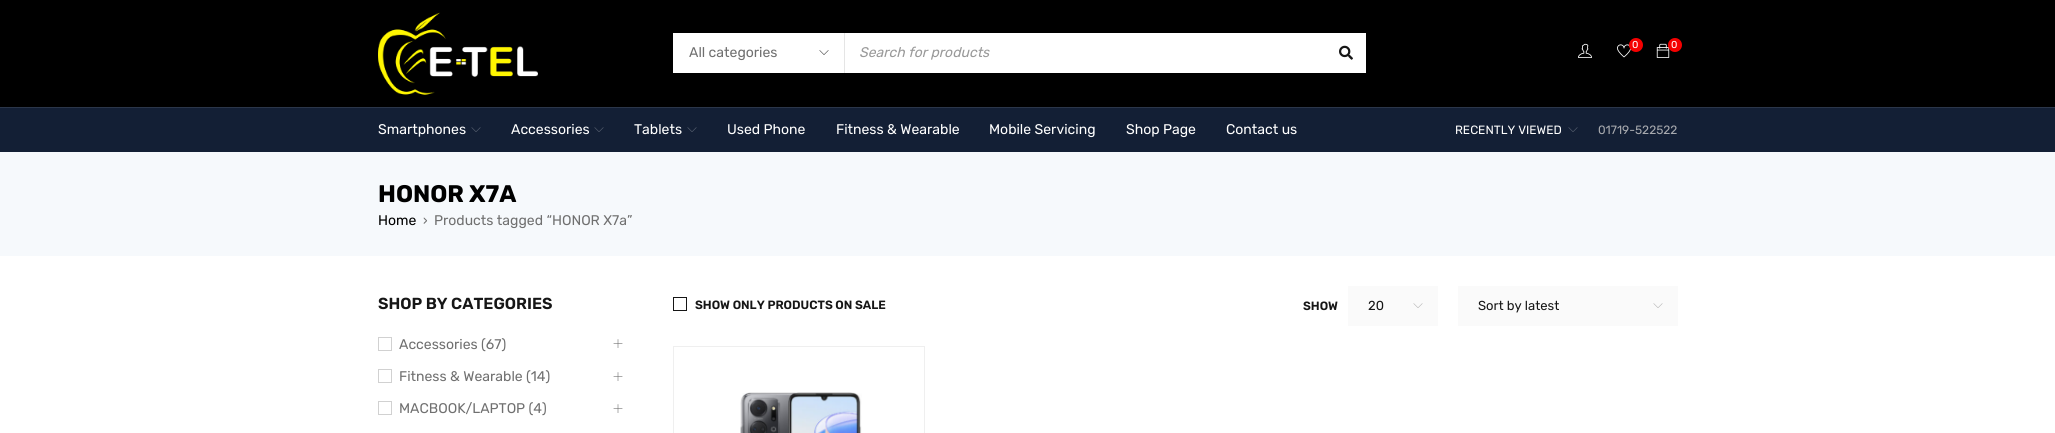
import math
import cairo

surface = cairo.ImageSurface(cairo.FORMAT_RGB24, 2055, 433)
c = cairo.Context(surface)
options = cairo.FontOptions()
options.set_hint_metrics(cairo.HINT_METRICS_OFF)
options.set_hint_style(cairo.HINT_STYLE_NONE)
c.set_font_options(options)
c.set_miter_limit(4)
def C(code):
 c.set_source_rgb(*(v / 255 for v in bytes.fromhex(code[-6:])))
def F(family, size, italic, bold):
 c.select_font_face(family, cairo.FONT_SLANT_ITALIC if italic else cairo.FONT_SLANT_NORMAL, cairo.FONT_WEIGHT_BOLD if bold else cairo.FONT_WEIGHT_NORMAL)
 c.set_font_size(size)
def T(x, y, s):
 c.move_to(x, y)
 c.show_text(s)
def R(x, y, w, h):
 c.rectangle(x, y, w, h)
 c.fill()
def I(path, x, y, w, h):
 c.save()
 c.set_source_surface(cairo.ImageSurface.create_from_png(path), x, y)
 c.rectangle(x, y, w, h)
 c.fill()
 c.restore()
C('ffffff')
c.paint()
C('000000')
R(0,0,2055,107)
I('1.png',378,12,160,83)
I('2.png',1578,43,14,15)
I('3.png',1617,44,14,14)
C('f50000')
c.arc(1636,45,7,0,2 * math.pi)
c.fill()
F('Rubik',10,0,0)
C('ffffff')
T(1632,48,'0')
I('4.png',1656,43,14,15)
C('f50000')
c.arc(1675,45,7,0,2 * math.pi)
c.fill()
C('ffffff')
T(1671,48,'0')
R(673,33,693,40)
I('5.png',819,50,10,5)
F('Rubik',14,0,0)
C('707070')
T(689,57,'All categories')
C('e5e5e5')
R(844,33,1,40)
F('Rubik',14,1,0)
C('999999')
T(859,57,'Search for products')
I('6.png',1339,45,14,15)
C('131f35')
R(0,108,2055,44)
C('2b364a')
R(0,107,2055,1)
F('Rubik',14,0,0)
C('ffffff')
T(378,134,'Smartphones')
I('7.png',471,127,10,5)
T(511,134,'Accessories')
I('7.png',594,127,10,5)
T(634,134,'Tablets')
I('7.png',687,127,10,5)
T(727,134,'Used Phone')
T(836,134,'Fitness & Wearable')
T(989,134,'Mobile Servicing')
T(1126,134,'Shop Page')
T(1226,134,'Contact us')
F('Rubik',12,0,0)
T(1455,134,'RECENTLY VIEWED')
I('7.png',1568,127,10,5)
C('a7a9ae')
T(1598,134,'01719-522522')
C('f6f9fc')
R(0,152,2055,104)
F('Rubik',24,0,1)
C('000000')
T(378,202,'HONOR X7A')
F('Rubik',14,0,0)
T(378,225,'Home')
F('Rubik',13,0,0)
C('707070')
T(423,225,'›')
F('Rubik',14,0,0)
T(434,225,'Products tagged “HONOR X7a”')
F('Rubik SemiBold',16,0,0)
C('161616')
T(378,309,'SHOP BY CATEGORIES')
c.rectangle(378.5,337.5,13,13)
C('d1d1d1')
c.set_line_width(1)
c.stroke()
F('Rubik',14,0,0)
C('707070')
T(399,349,'Accessories (67)')
I('8.png',613,339,10,9)
c.rectangle(378.5,369.5,13,13)
C('d1d1d1')
c.stroke()
C('707070')
T(399,381,'Fitness & Wearable (14)')
I('8.png',613,372,10,9)
c.rectangle(378.5,401.5,13,13)
C('d1d1d1')
c.stroke()
C('707070')
T(399,413,'MACBOOK/LAPTOP (4)')
I('8.png',613,404,10,9)
c.rectangle(673.5,297.5,13,13)
C('161616')
c.stroke()
F('Rubik SemiBold',12,0,0)
T(695,309,'SHOW ONLY PRODUCTS ON SALE')
T(1303,310,'SHOW')
C('fafafa')
R(1348,286,90,40)
F('Rubik',13,0,0)
C('161616')
T(1368,310,'20')
I('9.png',1413,303,10,5)
C('fafafa')
R(1458,286,220,40)
C('161616')
T(1478,310,'Sort by latest')
I('9.png',1653,303,10,5)
C('efefef')
R(673,346,1,87)
R(674,346,251,1)
R(924,346,1,87)
I('10.png',740,392,122,41)
surface.write_to_png('o.png')
